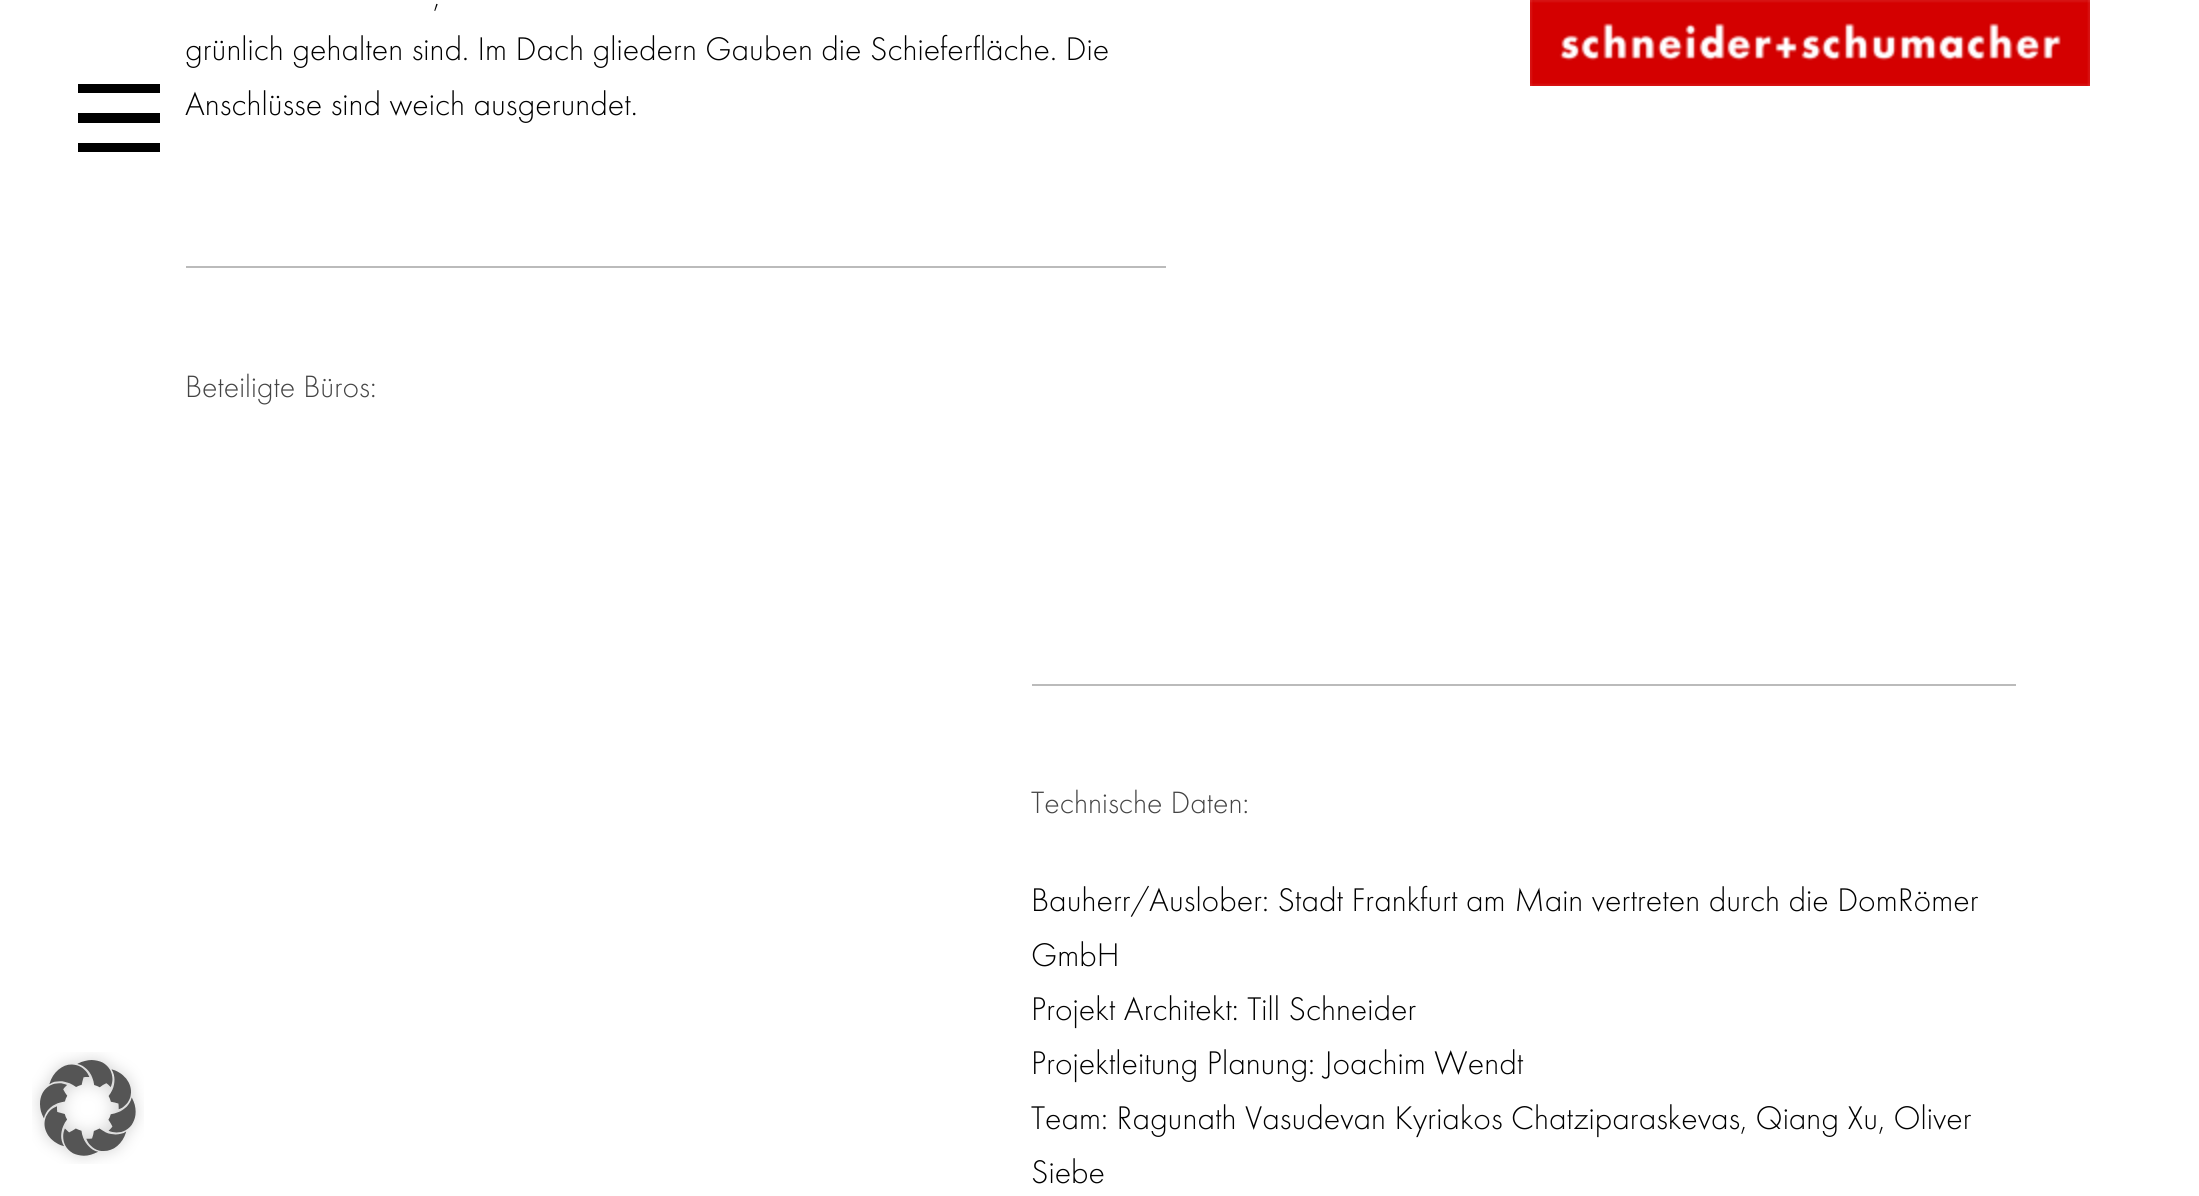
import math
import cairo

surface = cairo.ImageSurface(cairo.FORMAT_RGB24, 2199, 1196)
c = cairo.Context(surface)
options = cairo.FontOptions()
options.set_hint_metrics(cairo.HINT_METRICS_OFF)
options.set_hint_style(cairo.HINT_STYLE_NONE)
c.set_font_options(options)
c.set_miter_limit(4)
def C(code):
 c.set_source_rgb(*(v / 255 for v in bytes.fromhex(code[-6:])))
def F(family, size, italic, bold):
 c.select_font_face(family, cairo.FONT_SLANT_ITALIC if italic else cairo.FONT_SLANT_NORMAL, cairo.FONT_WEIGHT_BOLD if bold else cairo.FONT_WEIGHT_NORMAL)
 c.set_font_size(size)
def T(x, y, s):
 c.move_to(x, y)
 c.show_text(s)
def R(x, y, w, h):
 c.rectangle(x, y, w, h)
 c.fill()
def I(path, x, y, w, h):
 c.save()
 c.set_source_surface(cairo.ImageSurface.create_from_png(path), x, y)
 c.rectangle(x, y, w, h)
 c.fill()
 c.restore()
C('ffffff')
c.paint()
I('1.png',1530,0,560,86)
C('000000')
R(78,84,82,9)
R(78,113,82,10)
R(78,143,82,9)
I('2.png',32,1052,112,112)
F('Futura Light',34,0,0)
T(433,6,',')
T(185,60,'grünlich gehalten sind. Im Dach gliedern Gauben die Schieferfläche. Die')
T(185,115,'Anschlüsse sind weich ausgerundet.')
C('bbbbbb')
R(186,266,980,2)
F('Futura Light',32,0,0)
C('444444')
T(185,397,'Beteiligte Büros:')
C('bbbbbb')
R(1032,684,984,2)
C('444444')
T(1031,813,'Technische Daten:')
F('Futura Light',34,0,0)
C('000000')
T(1031,911,'Bauherr/Auslober: Stadt Frankfurt am Main vertreten durch die DomRömer')
T(1031,966,'GmbH')
T(1031,1020,'Projekt Architekt: Till Schneider')
T(1031,1074,'Projektleitung Planung: Joachim Wendt')
T(1031,1129,'Team: Ragunath Vasudevan Kyriakos Chatziparaskevas, Qiang Xu, Oliver')
T(1031,1183,'Siebe')
surface.write_to_png('o.png')
